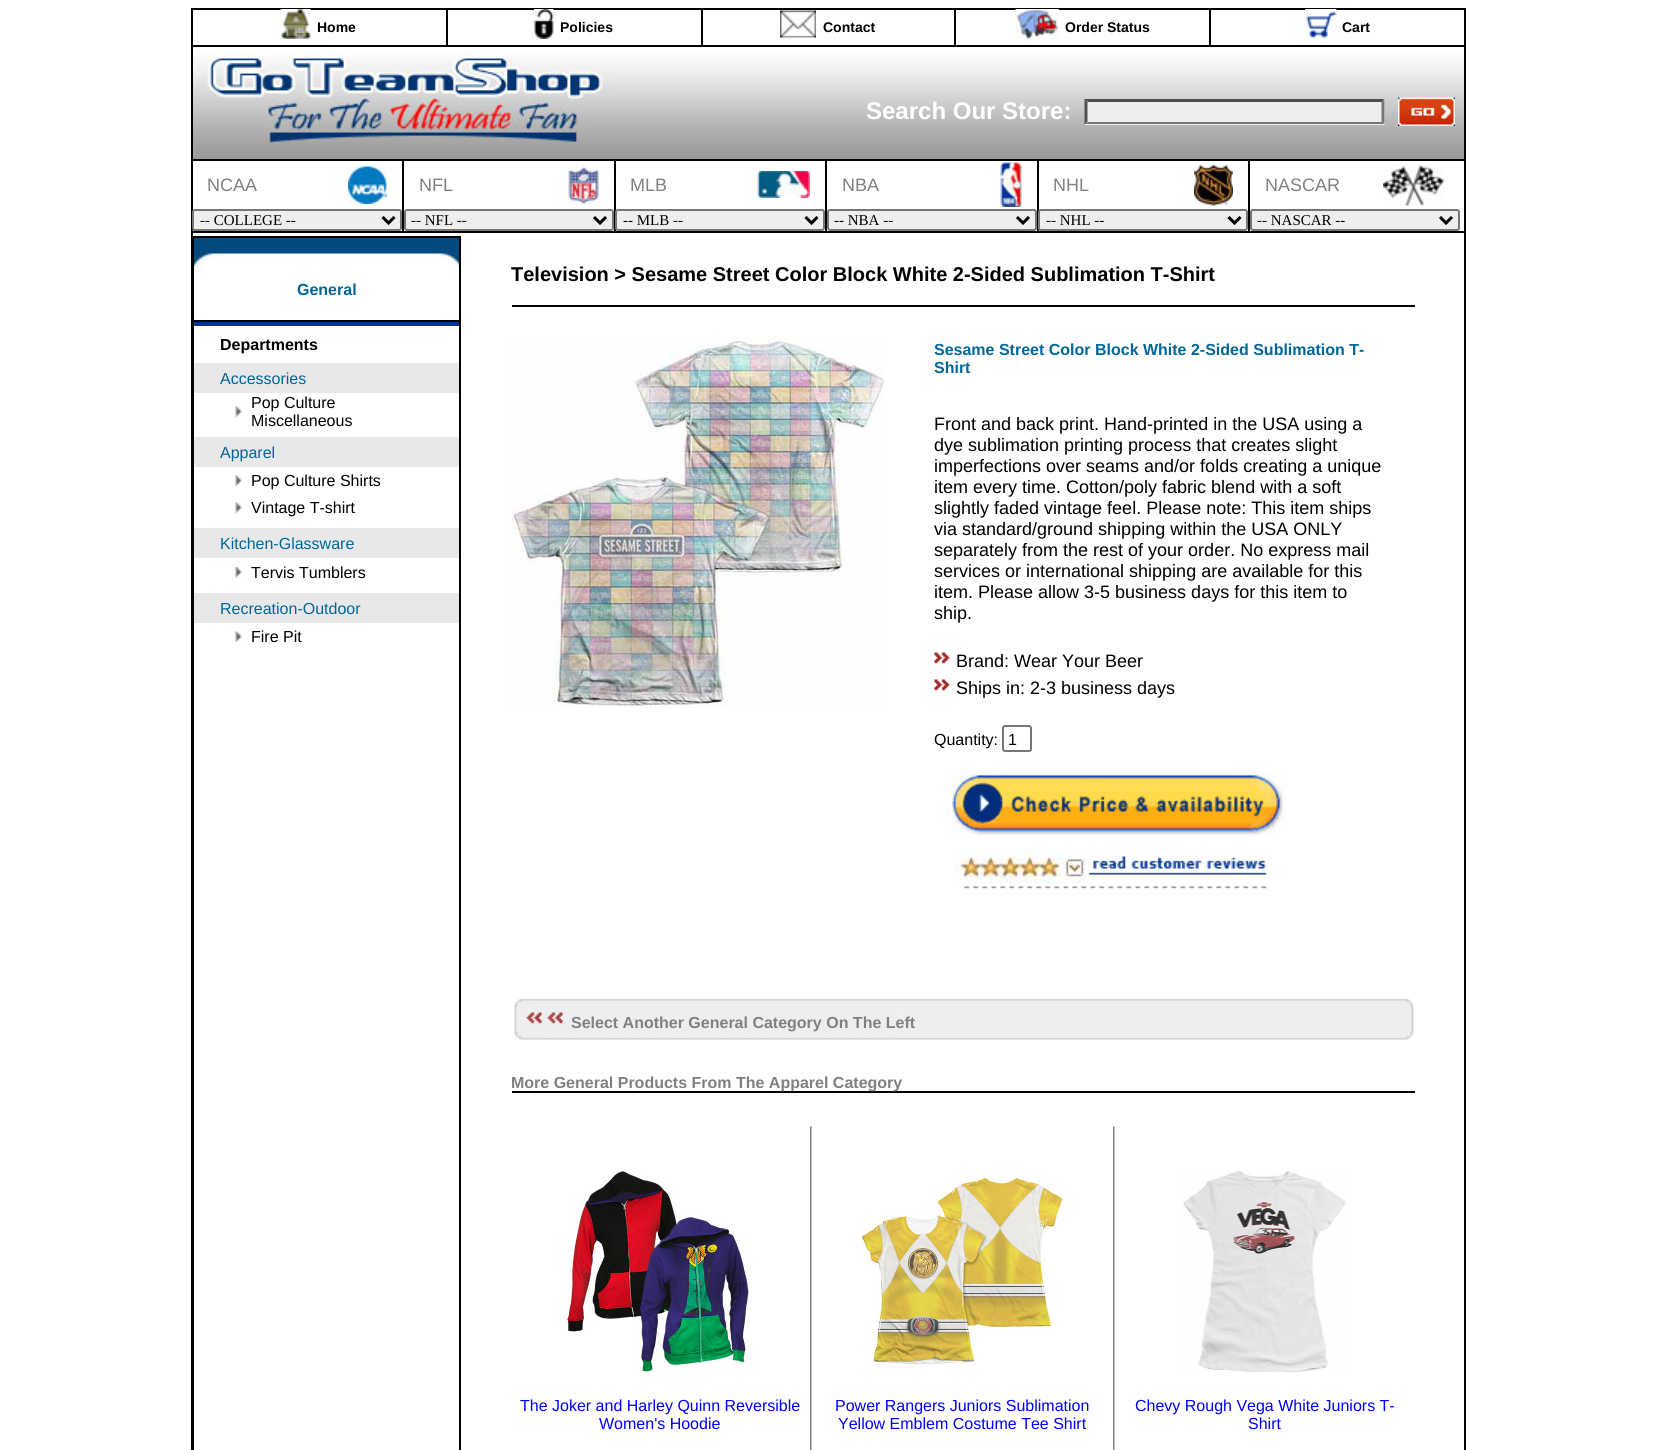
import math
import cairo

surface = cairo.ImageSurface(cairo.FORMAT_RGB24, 1656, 1450)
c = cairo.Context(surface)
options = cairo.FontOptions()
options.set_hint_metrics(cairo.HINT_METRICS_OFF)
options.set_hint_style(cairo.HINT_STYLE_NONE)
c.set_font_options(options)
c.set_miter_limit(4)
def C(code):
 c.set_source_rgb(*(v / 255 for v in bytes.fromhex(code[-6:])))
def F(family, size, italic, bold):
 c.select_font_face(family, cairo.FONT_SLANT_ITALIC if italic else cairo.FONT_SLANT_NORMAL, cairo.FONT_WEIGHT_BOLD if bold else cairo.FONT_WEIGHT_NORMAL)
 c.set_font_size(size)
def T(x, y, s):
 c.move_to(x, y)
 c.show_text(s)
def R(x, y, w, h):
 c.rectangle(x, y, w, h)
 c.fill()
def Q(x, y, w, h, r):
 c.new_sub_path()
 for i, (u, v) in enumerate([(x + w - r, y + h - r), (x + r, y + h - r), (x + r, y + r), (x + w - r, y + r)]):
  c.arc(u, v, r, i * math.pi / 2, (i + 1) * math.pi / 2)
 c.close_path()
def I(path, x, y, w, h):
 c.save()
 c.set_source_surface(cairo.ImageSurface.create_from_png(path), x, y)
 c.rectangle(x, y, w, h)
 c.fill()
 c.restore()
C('ffffff')
c.paint()
C('000000')
R(191,8,1275,2)
R(1464,8,2,1442)
R(192,231,1272,2)
R(192,236,269,2)
C('003399')
R(194,322,267,4)
C('000000')
R(459,236,2,1214)
R(193,236,1,1214)
R(192,320,269,2)
R(191,8,2,1442)
I('1.png',280,9,31,30)
F('Liberation Sans',14,0,1)
T(317,32,'Home')
R(191,45,1275,2)
R(446,8,2,39)
I('2.png',534,9,20,30)
T(560,32,'Policies')
R(701,8,2,39)
I('3.png',780,10,36,28)
T(823,32,'Contact')
R(954,8,2,39)
I('4.png',1015,9,44,30)
T(1065,32,'Order Status')
R(1209,8,2,39)
I('5.png',1305,9,32,30)
T(1342,32,'Cart')
I('6.png',193,53,1271,106)
R(191,159,1275,2)
F('Liberation Sans',24,0,1)
C('ffffff')
T(866,119,'Search Our Store:')
C('eeeeee')
R(1085,99,300,26)
C('4f4f4f')
c.new_path()
c.move_to(1084,99)
c.line_to(1384,99)
c.line_to(1382,102)
c.line_to(1088,102)
c.close_path()
c.fill()
C('767676')
c.new_path()
c.move_to(1384.5,99)
c.line_to(1384.5,124.5)
c.line_to(1381.5,121.5)
c.line_to(1381.5,102)
c.close_path()
c.fill()
c.new_path()
c.move_to(1384,124)
c.line_to(1084,124)
c.line_to(1088,122)
c.line_to(1382,122)
c.close_path()
c.fill()
C('4f4f4f')
c.new_path()
c.move_to(1084.5,124.5)
c.line_to(1084.5,99)
c.line_to(1087.5,102)
c.line_to(1087.5,121.5)
c.close_path()
c.fill()
I('7.png',1398,97,57,29)
F('Liberation Sans',18,0,0)
C('808080')
T(207,191,'NCAA')
I('8.png',348,166,39,38)
C('eeeeee')
Q(193,210,208,20,2)
c.fill_preserve()
C('767676')
c.stroke()
c.new_path()
c.move_to(382.5,217)
c.line_to(388.5,223)
c.line_to(394.5,217)
C('000000')
c.set_line_width(3)
c.stroke()
F('Liberation Serif',15,0,0)
T(200,225,'-- COLLEGE --')
R(402,161,2,70)
F('Liberation Sans',18,0,0)
C('808080')
T(419,191,'NFL')
I('9.png',568,166,31,38)
C('eeeeee')
Q(405,210,208,20,2)
c.fill_preserve()
C('767676')
c.set_line_width(2)
c.stroke()
c.new_path()
c.move_to(594,217)
c.line_to(600,223)
c.line_to(606,217)
C('000000')
c.set_line_width(3)
c.stroke()
F('Liberation Serif',15,0,0)
T(411,225,'-- NFL --')
R(614,161,2,70)
F('Liberation Sans',18,0,0)
C('808080')
T(630,191,'MLB')
I('10.png',757,171,53,27)
C('eeeeee')
Q(616,210,208,20,2)
c.fill_preserve()
C('767676')
c.set_line_width(2)
c.stroke()
c.new_path()
c.move_to(805.5,217)
c.line_to(811.5,223)
c.line_to(817.5,217)
C('000000')
c.set_line_width(3)
c.stroke()
F('Liberation Serif',15,0,0)
T(623,225,'-- MLB --')
R(825,161,2,70)
F('Liberation Sans',18,0,0)
C('808080')
T(842,191,'NBA')
I('11.png',1000,162,22,45)
C('eeeeee')
Q(828,210,208,20,2)
c.fill_preserve()
C('767676')
c.set_line_width(2)
c.stroke()
c.new_path()
c.move_to(1017,217)
c.line_to(1023,223)
c.line_to(1029,217)
C('000000')
c.set_line_width(3)
c.stroke()
F('Liberation Serif',15,0,0)
T(834,225,'-- NBA --')
R(1037,161,2,70)
F('Liberation Sans',18,0,0)
C('808080')
T(1053,191,'NHL')
I('12.png',1194,165,39,41)
C('eeeeee')
Q(1039,210,208,20,2)
c.fill_preserve()
C('767676')
c.set_line_width(2)
c.stroke()
c.new_path()
c.move_to(1228.5,217)
c.line_to(1234.5,223)
c.line_to(1240.5,217)
C('000000')
c.set_line_width(3)
c.stroke()
F('Liberation Serif',15,0,0)
T(1046,225,'-- NHL --')
R(1248,161,2,70)
F('Liberation Sans',18,0,0)
C('808080')
T(1265,191,'NASCAR')
I('13.png',1383,165,62,41)
C('eeeeee')
Q(1251,210,208,20,2)
c.fill_preserve()
C('767676')
c.set_line_width(2)
c.stroke()
c.new_path()
c.move_to(1440,217)
c.line_to(1446,223)
c.line_to(1452,217)
C('000000')
c.set_line_width(3)
c.stroke()
F('Liberation Serif',15,0,0)
T(1257,225,'-- NASCAR --')
I('14.png',194,238,265,35)
F('Liberation Sans',16,0,1)
C('006699')
T(297,295,'General')
C('000000')
T(220,350,'Departments')
C('e8e8e8')
R(194,363,265,30)
F('Liberation Sans',16,0,0)
C('006699')
T(220,384,'Accessories')
I('15.png',235,406,7,11)
C('000000')
T(251,408,'Pop Culture')
T(251,426,'Miscellaneous')
C('e8e8e8')
R(194,437,265,30)
C('006699')
T(220,458,'Apparel')
I('15.png',235,475,7,11)
C('000000')
T(251,486,'Pop Culture Shirts')
I('15.png',235,502,7,11)
T(251,513,'Vintage T-shirt')
C('e8e8e8')
R(194,528,265,30)
C('006699')
T(220,549,'Kitchen-Glassware')
I('16.png',235,567,7,11)
C('000000')
T(251,578,'Tervis Tumblers')
C('e8e8e8')
R(194,593,265,30)
C('006699')
T(220,614,'Recreation-Outdoor')
I('15.png',235,631,7,11)
C('000000')
T(251,642,'Fire Pit')
F('Liberation Sans',20,0,1)
T(511,281,'Television > Sesame Street Color Block White 2-Sided Sublimation T-Shirt')
R(512,305,903,2)
I('17.png',511,336,374,372)
F('Liberation Sans',16,0,1)
C('006699')
T(934,355,'Sesame Street Color Block White 2-Sided Sublimation T-')
T(934,373,'Shirt')
F('Liberation Sans',18,0,0)
C('000000')
T(934,430,'Front and back print. Hand-printed in the USA using a')
T(934,451,'dye sublimation printing process that creates slight')
T(934,472,'imperfections over seams and/or folds creating a unique')
T(934,493,'item every time. Cotton/poly fabric blend with a soft')
T(934,514,'slightly faded vintage feel. Please note: This item ships')
T(934,535,'via standard/ground shipping within the USA ONLY')
T(934,556,'separately from the rest of your order. No express mail')
T(934,577,'services or international shipping are available for this')
T(934,598,'item. Please allow 3-5 business days for this item to')
T(934,619,'ship.')
I('18.png',934,652,16,12)
T(956,667,'Brand: Wear Your Beer')
I('18.png',934,679,16,12)
T(956,694,'Ships in: 2-3 business days')
F('Liberation Sans',16,0,0)
T(934,745,'Quantity:')
Q(1003,726,28,25,2)
C('767676')
c.set_line_width(2)
c.stroke()
C('000000')
T(1008,745,'1')
I('19.png',951,774,336,115)
I('20.png',514,998,900,42)
I('21.png',525,1012,17,14)
I('22.png',547,1012,16,12)
F('Liberation Sans',16,0,1)
C('808080')
T(571,1028,'Select Another General Category On The Left')
C('000000')
R(512,1091,903,2)
C('808080')
T(511,1088,'More General Products From The Apparel Category')
I('23.png',567,1171,184,204)
F('Liberation Sans',16,0,0)
C('0000ff')
T(520,1411,'The Joker and Harley Quinn Reversible')
T(599,1429,'Women\'s Hoodie')
I('24.png',810,1126,2,324)
I('25.png',862,1175,201,190)
T(835,1411,'Power Rangers Juniors Sublimation')
T(838,1429,'Yellow Emblem Costume Tee Shirt')
I('24.png',1113,1126,2,324)
I('26.png',1183,1170,164,203)
T(1135,1411,'Chevy Rough Vega White Juniors T-')
T(1248,1429,'Shirt')
surface.write_to_png('o.png')
